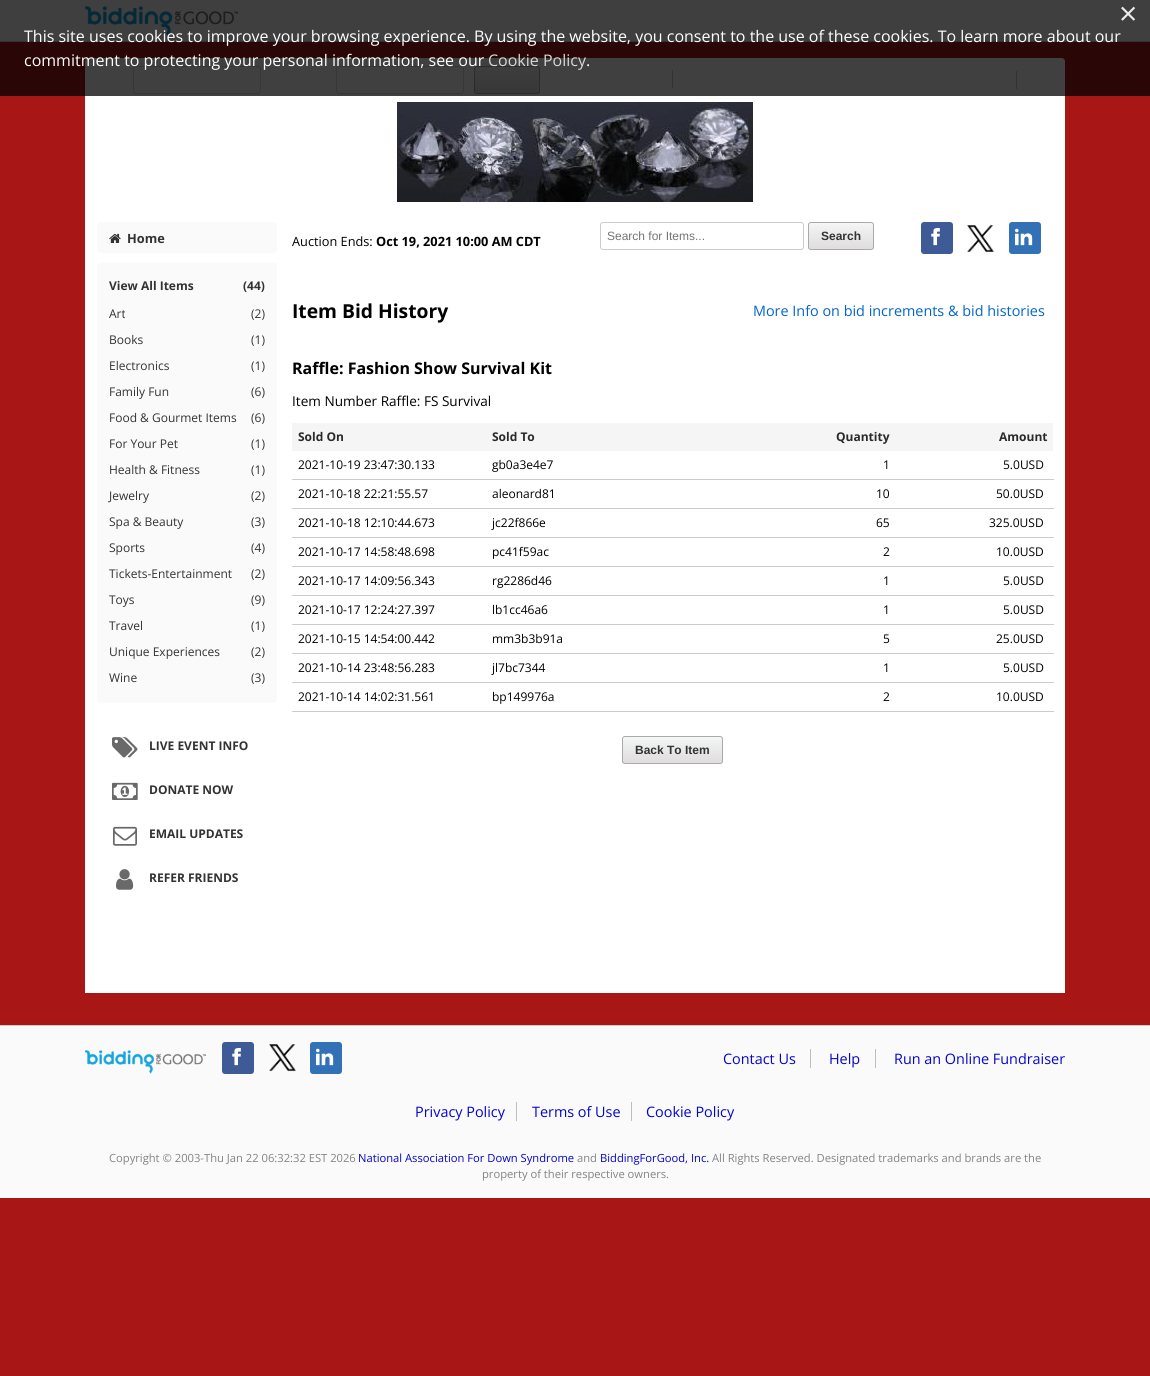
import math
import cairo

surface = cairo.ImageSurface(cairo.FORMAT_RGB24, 1150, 1376)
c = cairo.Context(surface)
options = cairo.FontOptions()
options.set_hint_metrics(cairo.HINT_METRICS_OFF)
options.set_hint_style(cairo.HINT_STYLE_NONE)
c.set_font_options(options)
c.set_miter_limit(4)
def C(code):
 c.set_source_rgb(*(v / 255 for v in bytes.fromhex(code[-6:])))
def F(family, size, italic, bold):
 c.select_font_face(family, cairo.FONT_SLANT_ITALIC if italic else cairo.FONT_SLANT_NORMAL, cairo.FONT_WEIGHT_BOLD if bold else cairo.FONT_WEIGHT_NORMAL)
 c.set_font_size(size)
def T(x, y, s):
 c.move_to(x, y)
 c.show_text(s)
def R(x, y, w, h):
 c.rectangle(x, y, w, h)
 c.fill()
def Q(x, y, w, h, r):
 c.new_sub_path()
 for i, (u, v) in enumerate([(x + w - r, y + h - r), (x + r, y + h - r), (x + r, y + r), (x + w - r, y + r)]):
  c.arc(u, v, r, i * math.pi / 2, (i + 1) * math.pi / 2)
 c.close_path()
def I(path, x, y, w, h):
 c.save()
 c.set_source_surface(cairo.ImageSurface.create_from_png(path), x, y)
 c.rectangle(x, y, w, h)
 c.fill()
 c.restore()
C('a81616')
c.paint()
C('fafafa')
R(0,0,1150,41)
C('cccccc')
R(0,41,1150,1)
I('1.png',85,6,153,30)
C('ffffff')
c.new_path()
c.move_to(88,58)
c.line_to(1062,58)
c.curve_to(1063.5,58,1065,59.5,1065,61)
c.line_to(1065,102)
c.line_to(85,102)
c.line_to(85,61)
c.curve_to(85,59.5,86.5,58,88,58)
c.close_path()
c.fill()
Q(133.5,66.5,127,27,2.5)
C('dddddd')
c.set_line_width(1)
c.stroke()
Q(336.5,66.5,127,27,2.5)
c.stroke()
c.save()
Q(474,66,66,28,3)
c.clip()
gradient = cairo.LinearGradient(507,67,507,93)
gradient.add_color_stop_rgba(0,0.957,0.961,0.961,1)
gradient.add_color_stop_rgba(1,0.875,0.867,0.867,1)
c.set_source(gradient)
R(474,67,66,26)
c.restore()
Q(474.5,66.5,65,27,2.5)
C('aaaaaa')
c.stroke()
C('cccccc')
R(672,70,1,18)
R(1016,71,1,18)
C('ffffff')
R(85,102,980,891)
I('2.png',397,102,356,100)
c.set_source_rgba(0,0,0,0.75)
R(0,0,1150,96)
F('Open Sans',32,0,0)
C('ececec')
T(1119,25,'×')
F('Open Sans',16,0,0)
C('ffffff')
T(24,42,'This site uses cookies to improve your browsing experience. By using the website, you consent to the use of these cookies. To learn more about our')
T(24,66,'commitment to protecting your personal information, see our')
C('d8d6d6')
T(488,66,'Cookie Policy')
C('ffffff')
T(586,66,'.')
C('fafafa')
Q(97,222,180,31,4)
c.fill()
I('3.png',109,233,12,10)
F('Open Sans',12.75,0,1)
C('333333')
T(127,243,'Home')
C('fafafa')
Q(97,263,180,440,4)
c.fill()
F('Open Sans',12,0,1)
C('333333')
T(109,290,'View All Items')
T(243,290,'(44)')
F('Open Sans',12,0,0)
T(109,318,'Art')
T(251,318,'(2)')
T(109,344,'Books')
T(251,344,'(1)')
T(109,370,'Electronics')
T(251,370,'(1)')
T(109,396,'Family Fun')
T(251,396,'(6)')
T(109,422,'Food & Gourmet Items')
T(251,422,'(6)')
T(109,448,'For Your Pet')
T(251,448,'(1)')
T(109,474,'Health & Fitness')
T(251,474,'(1)')
T(109,500,'Jewelry')
T(251,500,'(2)')
T(109,526,'Spa & Beauty')
T(251,526,'(3)')
T(109,552,'Sports')
T(251,552,'(4)')
T(109,578,'Tickets-Entertainment')
T(251,578,'(2)')
T(109,604,'Toys')
T(251,604,'(9)')
T(109,630,'Travel')
T(251,630,'(1)')
T(109,656,'Unique Experiences')
T(251,656,'(2)')
T(109,682,'Wine')
T(251,682,'(3)')
I('4.png',112,737,26,21)
F('Open Sans',12,0,1)
T(149,750,'LIVE EVENT INFO')
I('5.png',112,782,26,18)
T(149,794,'DONATE NOW')
I('6.png',113,826,24,20)
T(149,838,'EMAIL UPDATES')
I('7.png',116,869,18,21)
T(149,882,'REFER FRIENDS')
F('Open Sans',12.75,0,0)
C('000000')
T(292,246,'Auction Ends:')
F('Open Sans',12.75,0,1)
T(376,246,'Oct 19, 2021 10:00 AM CDT')
Q(600.5,222.5,203,27,2.5)
C('cccccc')
c.stroke()
F('Liberation Sans',12,0,0)
C('757575')
T(607,240,'Search for Items...')
c.save()
Q(808,222,66,28,3)
c.clip()
gradient = cairo.LinearGradient(841,223,841,249)
gradient.add_color_stop_rgba(0,0.957,0.961,0.961,1)
gradient.add_color_stop_rgba(1,0.875,0.867,0.867,1)
c.set_source(gradient)
R(808,223,66,26)
c.restore()
Q(808.5,222.5,65,27,2.5)
C('aaaaaa')
c.stroke()
F('Liberation Sans',12,0,1)
C('333333')
T(821,240,'Search')
C('3e5b98')
Q(921,222,32,32,3)
c.fill()
I('8.png',931,228,9,18)
I('9.png',967,225,27,28)
C('3371b7')
Q(1009,222,32,32,3)
c.fill()
I('10.png',1015,228,18,18)
F('Open Sans',19.25,0,1)
C('000000')
T(292,318,'Item Bid History')
F('Open Sans',14.4,0,0)
C('0066cc')
T(753,316,'More Info on bid increments & bid histories')
F('Open Sans',16,0,1)
C('000000')
T(292,374,'Raffle: Fashion Show Survival Kit')
F('Open Sans',13.6,0,0)
T(292,406,'Item Number Raffle: FS Survival')
C('f5f5f5')
R(292,423,761,28)
F('Open Sans',12,0,1)
C('2a2a2a')
T(298,441,'Sold On')
T(492,441,'Sold To')
T(836,441,'Quantity')
T(999,441,'Amount')
C('cccccc')
R(292,479,762,1)
F('Open Sans',12,0,0)
C('000000')
T(298,469,'2021-10-19 23:47:30.133')
T(492,469,'gb0a3e4e7')
T(883,469,'1')
T(1003,469,'5.0USD')
C('cccccc')
R(292,508,762,1)
C('000000')
T(298,498,'2021-10-18 22:21:55.57')
T(492,498,'aleonard81')
T(876,498,'10')
T(996,498,'50.0USD')
C('cccccc')
R(292,537,762,1)
C('000000')
T(298,527,'2021-10-18 12:10:44.673')
T(492,527,'jc22f866e')
T(876,527,'65')
T(989,527,'325.0USD')
C('cccccc')
R(292,566,762,1)
C('000000')
T(298,556,'2021-10-17 14:58:48.698')
T(492,556,'pc41f59ac')
T(883,556,'2')
T(996,556,'10.0USD')
C('cccccc')
R(292,595,762,1)
C('000000')
T(298,585,'2021-10-17 14:09:56.343')
T(492,585,'rg2286d46')
T(883,585,'1')
T(1003,585,'5.0USD')
C('cccccc')
R(292,624,762,1)
C('000000')
T(298,614,'2021-10-17 12:24:27.397')
T(492,614,'lb1cc46a6')
T(883,614,'1')
T(1003,614,'5.0USD')
C('cccccc')
R(292,653,762,1)
C('000000')
T(298,643,'2021-10-15 14:54:00.442')
T(492,643,'mm3b3b91a')
T(883,643,'5')
T(996,643,'25.0USD')
C('cccccc')
R(292,682,762,1)
C('000000')
T(298,672,'2021-10-14 23:48:56.283')
T(492,672,'jl7bc7344')
T(883,672,'1')
T(1003,672,'5.0USD')
C('cccccc')
R(292,711,762,1)
C('000000')
T(298,701,'2021-10-14 14:02:31.561')
T(492,701,'bp149976a')
T(883,701,'2')
T(996,701,'10.0USD')
c.save()
Q(622,736,101,28,3)
c.clip()
gradient = cairo.LinearGradient(673,737,673,763)
gradient.add_color_stop_rgba(0,0.957,0.961,0.961,1)
gradient.add_color_stop_rgba(1,0.875,0.867,0.867,1)
c.set_source(gradient)
R(622,737,101,26)
c.restore()
Q(622.5,736.5,100,27,2.5)
C('aaaaaa')
c.stroke()
F('Liberation Sans',12,0,1)
C('333333')
T(635,754,'Back To Item')
C('fafafa')
R(0,1026,1150,172)
C('cccccc')
R(0,1025,1150,1)
I('11.png',85,1050,121,24)
C('3e5b98')
Q(222,1042,32,32,3)
c.fill()
I('8.png',232,1048,9,18)
I('12.png',269,1044,27,28)
C('3371b7')
Q(310,1042,32,32,3)
c.fill()
I('10.png',316,1048,18,18)
C('bebebe')
R(810,1049,1,19)
F('Open Sans',14.4,0,0)
C('0505ce')
T(723,1064,'Contact Us')
C('bebebe')
R(875,1049,1,19)
C('0505ce')
T(829,1064,'Help')
T(894,1064,'Run an Online Fundraiser')
T(415,1117,'Privacy Policy')
C('bebebe')
R(516,1102,1,19)
C('0505ce')
T(532,1117,'Terms of Use')
C('bebebe')
R(631,1102,1,19)
C('0505ce')
T(646,1117,'Cookie Policy')
F('Open Sans',11.2,0,0)
C('848484')
T(109,1162,'Copyright © 2003-Thu Jan 22 06:32:32 EST 2026')
C('0505ce')
T(358,1162,'National Association For Down Syndrome')
C('848484')
T(577,1162,'and')
C('0505ce')
T(600,1162,'BiddingForGood, Inc.')
C('848484')
T(712,1162,'All Rights Reserved. Designated trademarks and brands are the')
T(482,1178,'property of their respective owners.')
surface.write_to_png('o.png')
